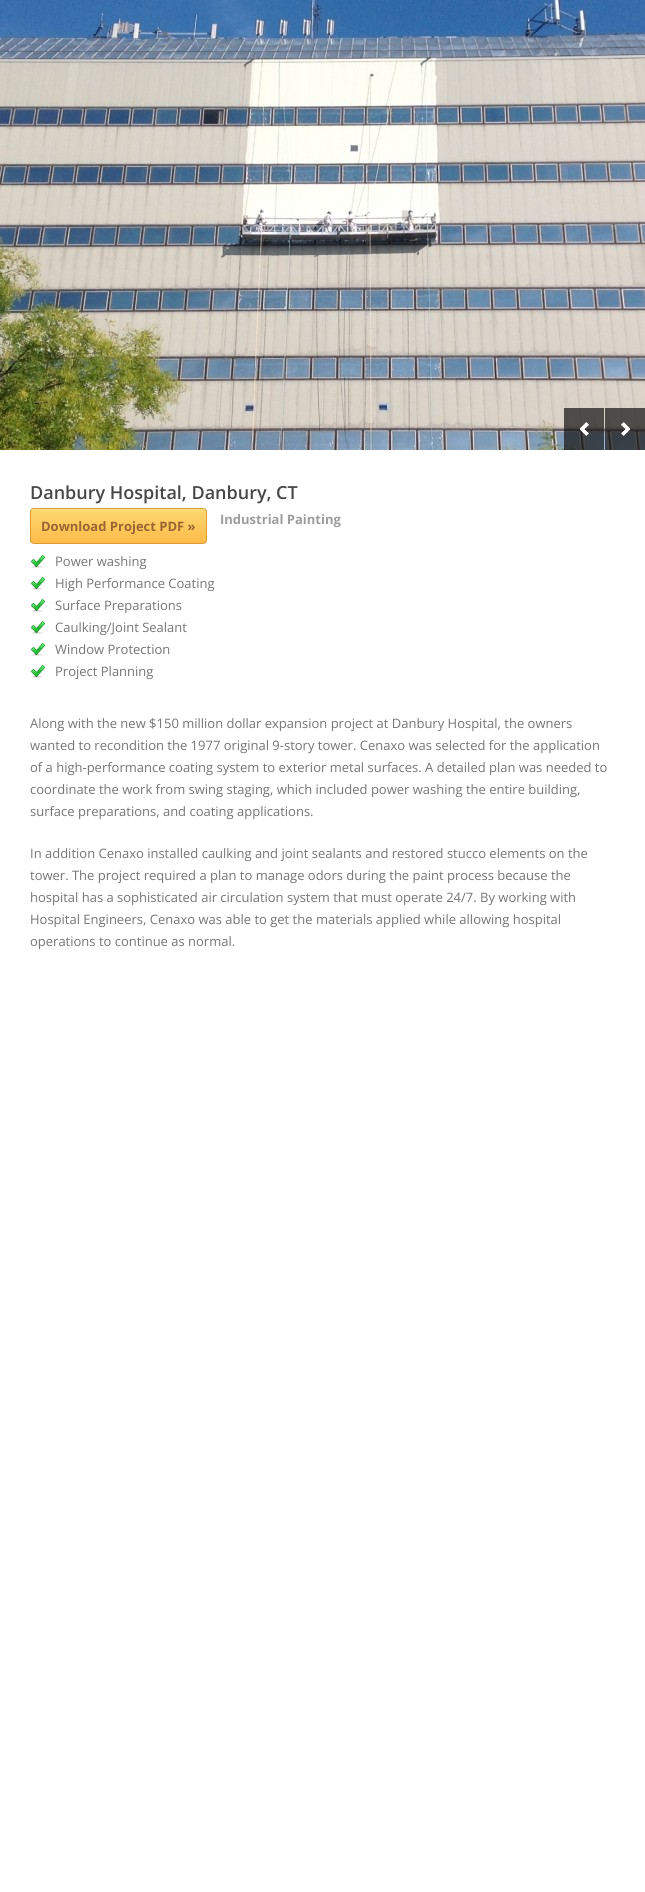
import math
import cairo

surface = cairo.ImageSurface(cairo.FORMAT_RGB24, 645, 1892)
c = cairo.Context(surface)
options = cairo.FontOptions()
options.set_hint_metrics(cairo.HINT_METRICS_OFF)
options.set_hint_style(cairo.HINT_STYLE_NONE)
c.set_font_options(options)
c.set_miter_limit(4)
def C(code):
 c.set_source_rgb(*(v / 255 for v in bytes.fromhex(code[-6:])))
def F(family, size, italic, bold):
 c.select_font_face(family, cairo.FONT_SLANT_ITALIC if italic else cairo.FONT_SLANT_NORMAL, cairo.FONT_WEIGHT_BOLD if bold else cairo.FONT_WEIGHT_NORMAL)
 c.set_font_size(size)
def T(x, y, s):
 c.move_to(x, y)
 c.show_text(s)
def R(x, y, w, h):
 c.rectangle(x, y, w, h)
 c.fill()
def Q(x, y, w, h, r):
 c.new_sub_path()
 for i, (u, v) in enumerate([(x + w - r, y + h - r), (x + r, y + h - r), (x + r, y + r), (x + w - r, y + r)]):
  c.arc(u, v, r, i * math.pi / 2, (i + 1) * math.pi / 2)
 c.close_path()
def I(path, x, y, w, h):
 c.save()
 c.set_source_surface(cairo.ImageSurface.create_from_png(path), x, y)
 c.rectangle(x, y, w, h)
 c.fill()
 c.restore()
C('ffffff')
c.paint()
I('1.png',0,0,645,450)
c.set_source_rgba(0.078,0.078,0.078,0.7)
R(564,408,40,42)
I('2.png',580,422,9,14)
R(605,408,40,42)
I('3.png',621,422,9,14)
F('Open Sans SemiBold',18,0,0)
C('474747')
T(30,499,'Danbury Hospital, Danbury, CT')
c.save()
Q(30,508,177,36,4)
c.clip()
gradient = cairo.LinearGradient(119,509,119,543)
gradient.add_color_stop_rgba(0,0.996,0.847,0.435,1)
gradient.add_color_stop_rgba(1,0.996,0.733,0.29,1)
c.set_source(gradient)
R(30,509,177,34)
c.restore()
C('fee395')
c.new_path()
c.move_to(34,510)
c.line_to(203,510)
c.curve_to(205,510,206,511,206,513)
c.line_to(206,512)
c.curve_to(206,510,205,509,203,509)
c.line_to(34,509)
c.curve_to(32,509,31,510,31,512)
c.line_to(31,513)
c.curve_to(31,511,32,510,34,510)
c.close_path()
c.fill()
Q(30.5,508.5,176,35,3.5)
C('db9d33')
c.set_line_width(1)
c.stroke()
F('Open Sans',13,0,1)
C('996633')
T(41,531,'Download Project PDF »')
C('9d9d9d')
T(220,524,'Industrial Painting')
I('4.png',31,555,14,13)
F('Open Sans',13,0,0)
C('757575')
T(55,566,'Power washing')
I('4.png',31,577,14,13)
T(55,588,'High Performance Coating')
I('4.png',31,599,14,13)
T(55,610,'Surface Preparations')
I('4.png',31,621,14,13)
T(55,632,'Caulking/Joint Sealant')
I('4.png',31,643,14,13)
T(55,654,'Window Protection')
I('4.png',31,665,14,13)
T(55,676,'Project Planning')
T(30,728,'Along with the new $150 million dollar expansion project at Danbury Hospital, the owners')
T(30,750,'wanted to recondition the 1977 original 9-story tower. Cenaxo was selected for the application')
T(30,772,'of a high-performance coating system to exterior metal surfaces. A detailed plan was needed to')
T(30,794,'coordinate the work from swing staging, which included power washing the entire building,')
T(30,816,'surface preparations, and coating applications.')
T(30,858,'In addition Cenaxo installed caulking and joint sealants and restored stucco elements on the')
T(30,880,'tower. The project required a plan to manage odors during the paint process because the')
T(30,902,'hospital has a sophisticated air circulation system that must operate 24/7. By working with')
T(30,924,'Hospital Engineers, Cenaxo was able to get the materials applied while allowing hospital')
T(30,946,'operations to continue as normal.')
surface.write_to_png('o.png')
